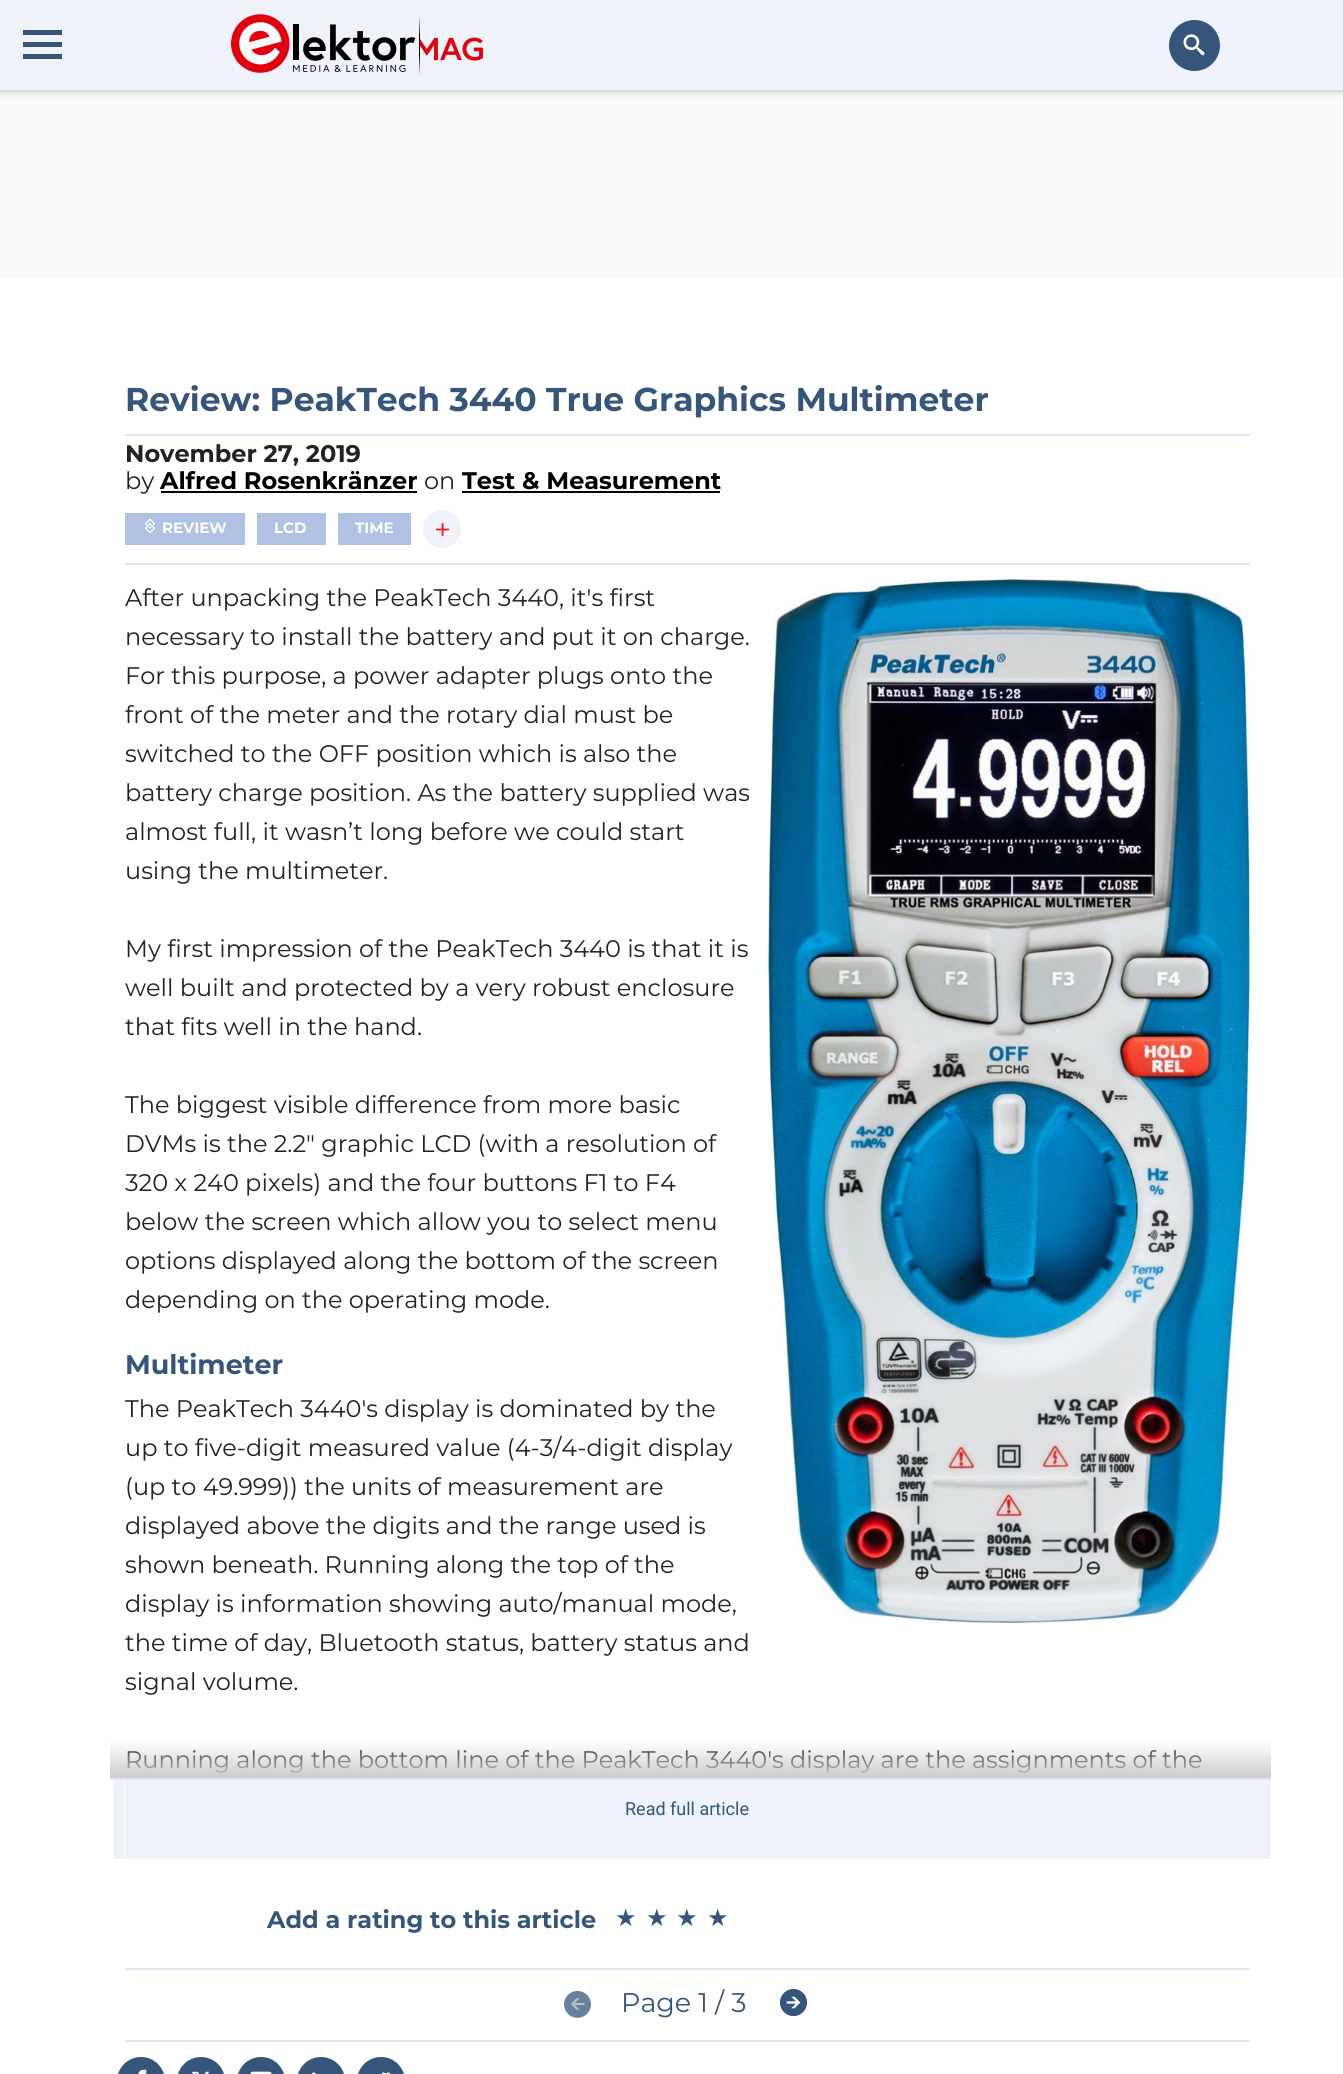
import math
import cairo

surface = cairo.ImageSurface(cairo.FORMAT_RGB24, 1343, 2074)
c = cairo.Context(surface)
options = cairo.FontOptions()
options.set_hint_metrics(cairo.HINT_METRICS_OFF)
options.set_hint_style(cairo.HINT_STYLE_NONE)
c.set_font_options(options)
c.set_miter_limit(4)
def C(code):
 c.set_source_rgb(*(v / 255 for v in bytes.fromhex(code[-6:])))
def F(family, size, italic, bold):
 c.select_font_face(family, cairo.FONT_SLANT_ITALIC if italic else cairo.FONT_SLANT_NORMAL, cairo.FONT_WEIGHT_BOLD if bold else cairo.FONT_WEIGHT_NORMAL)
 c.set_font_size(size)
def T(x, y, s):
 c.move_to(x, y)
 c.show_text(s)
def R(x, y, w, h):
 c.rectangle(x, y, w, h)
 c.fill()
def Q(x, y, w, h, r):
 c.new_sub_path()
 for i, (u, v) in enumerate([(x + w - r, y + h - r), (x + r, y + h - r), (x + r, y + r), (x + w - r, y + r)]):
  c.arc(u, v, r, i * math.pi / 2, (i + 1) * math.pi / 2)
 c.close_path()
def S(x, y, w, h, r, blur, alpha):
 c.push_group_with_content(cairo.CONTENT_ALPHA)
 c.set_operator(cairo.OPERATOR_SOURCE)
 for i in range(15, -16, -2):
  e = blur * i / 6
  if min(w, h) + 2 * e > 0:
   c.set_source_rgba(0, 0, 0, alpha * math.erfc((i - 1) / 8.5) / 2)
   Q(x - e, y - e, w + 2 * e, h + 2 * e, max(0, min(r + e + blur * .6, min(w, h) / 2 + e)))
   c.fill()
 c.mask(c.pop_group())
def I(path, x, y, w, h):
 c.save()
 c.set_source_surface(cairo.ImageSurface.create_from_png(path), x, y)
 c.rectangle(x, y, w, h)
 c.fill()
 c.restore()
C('fafafa')
c.paint()
C('ffffff')
R(0,278,1343,1796)
C('000000')
S(0,0,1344,90,0,4.5,.3)
C('f0f2fa')
R(0,0,1343,90)
C('35557a')
R(23,30,39,5)
R(23,42,39,5)
R(23,54,39,5)
I('1.png',231,14,252,61)
c.arc(1194.5,45.5,25.5,0,2 * math.pi)
c.fill()
I('2.png',1183,34,22,22)
F('Montserrat',33,0,1)
T(125,411,'Review: PeakTech 3440 True Graphics Multimeter')
C('e0e6f5')
R(125,434,1125,2)
R(125,563,1125,2)
F('Montserrat',24,0,1)
C('222222')
T(125,462,'November 27, 2019')
F('Montserrat',24,0,0)
T(125,489,'by')
F('Montserrat',24,0,1)
C('000000')
T(160,489,'Alfred Rosenkränzer')
R(161,491,256,2)
F('Montserrat',24,0,0)
C('222222')
T(424,489,'on')
F('Montserrat',24,0,1)
C('000000')
T(462,489,'Test & Measurement')
R(462,491,258,2)
C('b0c1e4')
R(125,513,120,32)
I('3.png',145,518,10,16)
F('Montserrat',15,0,1)
C('ffffff')
T(162,533,'REVIEW')
C('b0c1e4')
R(257,513,69,32)
C('ffffff')
T(274,533,'LCD')
C('b0c1e4')
R(338,513,73,32)
C('ffffff')
T(355,533,'TIME')
C('f0f2fa')
c.new_path()
c.arc(442,529,19,0,2 * math.pi)
c.fill()
F('Montserrat',30,0,0)
C('e4231e')
T(434,540,'+')
C('f0f2fa')
c.new_path()
c.move_to(113,1779)
c.line_to(113,1859)
c.line_to(1238,1859)
c.line_to(1238,1858)
c.line_to(124,1858)
c.line_to(124,1779)
c.close_path()
c.fill()
c.new_path()
c.move_to(146,1858)
c.line_to(146,1859)
c.line_to(1271,1859)
c.line_to(1271,1779)
c.line_to(1250,1779)
c.line_to(1250,1858)
c.close_path()
c.fill()
C('e0e6f5')
R(110,1778,1161,2)
F('Montserrat',24,0,0)
C('222222')
T(125,606,'After unpacking the PeakTech 3440, it\'s first')
I('4.png',768,579,482,1044)
T(125,645,'necessary to install the battery and put it on charge.')
T(125,684,'For this purpose, a power adapter plugs onto the')
T(125,723,'front of the meter and the rotary dial must be')
T(125,762,'switched to the OFF position which is also the')
T(125,801,'battery charge position. As the battery supplied was')
T(125,840,'almost full, it wasn’t long before we could start')
T(125,879,'using the multimeter.')
T(125,957,'My first impression of the PeakTech 3440 is that it is')
T(125,996,'well built and protected by a very robust enclosure')
T(125,1035,'that fits well in the hand.')
T(125,1113,'The biggest visible difference from more basic')
T(125,1152,'DVMs is the 2.2" graphic LCD (with a resolution of')
T(125,1191,'320 x 240 pixels) and the four buttons F1 to F4')
T(125,1230,'below the screen which allow you to select menu')
T(125,1269,'options displayed along the bottom of the screen')
T(125,1308,'depending on the operating mode.')
F('Montserrat',27,0,1)
C('35557a')
T(125,1374,'Multimeter')
F('Montserrat',24,0,0)
C('222222')
T(125,1417,'The PeakTech 3440\'s display is dominated by the')
T(125,1456,'up to five-digit measured value (4-3/4-digit display')
T(125,1495,'(up to 49.999)) the units of measurement are')
T(125,1534,'displayed above the digits and the range used is')
T(125,1573,'shown beneath. Running along the top of the')
T(125,1612,'display is information showing auto/manual mode,')
T(125,1651,'the time of day, Bluetooth status, battery status and')
T(125,1690,'signal volume.')
T(125,1768,'Running along the bottom line of the PeakTech 3440\'s display are the assignments of the')
gradient = cairo.LinearGradient(707,1718,707,1778)
gradient.add_color_stop_rgba(.37,0.8,0.8,0.8,0)
gradient.add_color_stop_rgba(1,0.8,0.8,0.8,1)
c.set_source(gradient)
R(110,1742,1161,36)
C('f0f2fa')
R(125,1780,1125,78)
F('Roboto',18,0,0)
C('35557a')
T(625,1815,'Read full article')
C('e0e6f5')
R(125,1968,1125,2)
F('Montserrat',24,0,1)
C('35557a')
T(267,1928,'Add a rating to this article')
F('DejaVu Sans',24,0,0)
T(615,1926,'★')
T(646,1926,'★')
T(676,1926,'★')
T(707,1926,'★')
C('e0e6f5')
R(125,2040,1125,2)
C('9aaabd')
c.new_path()
c.arc(577.5,2004.5,13.5,0,2 * math.pi)
c.fill()
I('5.png',564,1991,27,27)
F('Montserrat',27,0,0)
C('35557a')
T(621,2012,'Page 1 / 3')
c.new_path()
c.arc(793.5,2002.5,13.5,0,2 * math.pi)
c.fill()
I('6.png',780,1989,27,27)
Q(117,2057,48,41,24)
c.fill()
I('7.png',138,2069,9,5)
Q(177,2057,48,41,24)
c.fill()
I('8.png',191,2071,19,3)
Q(237,2057,48,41,24)
c.fill()
I('9.png',250,2071,22,3)
Q(297,2057,48,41,24)
c.fill()
I('10.png',311,2072,5,2)
Q(357,2057,48,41,24)
c.fill()
I('11.png',381,2072,10,2)
surface.write_to_png('o.png')
